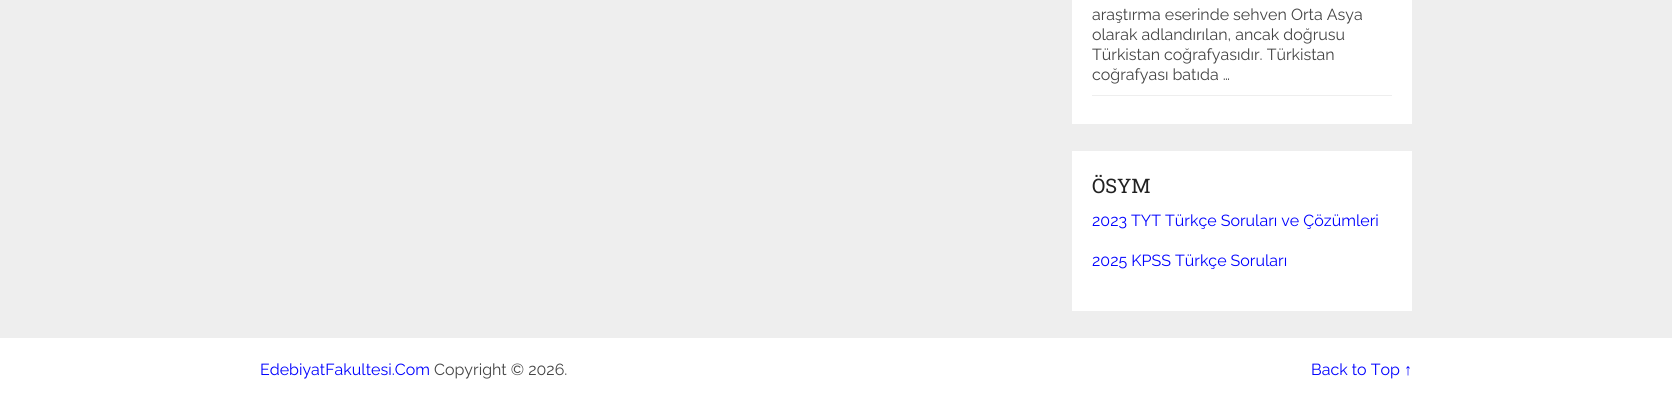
import math
import cairo

surface = cairo.ImageSurface(cairo.FORMAT_RGB24, 1672, 399)
c = cairo.Context(surface)
options = cairo.FontOptions()
options.set_hint_metrics(cairo.HINT_METRICS_OFF)
options.set_hint_style(cairo.HINT_STYLE_NONE)
c.set_font_options(options)
c.set_miter_limit(4)
def C(code):
 c.set_source_rgb(*(v / 255 for v in bytes.fromhex(code[-6:])))
def F(family, size, italic, bold):
 c.select_font_face(family, cairo.FONT_SLANT_ITALIC if italic else cairo.FONT_SLANT_NORMAL, cairo.FONT_WEIGHT_BOLD if bold else cairo.FONT_WEIGHT_NORMAL)
 c.set_font_size(size)
def T(x, y, s):
 c.move_to(x, y)
 c.show_text(s)
def R(x, y, w, h):
 c.rectangle(x, y, w, h)
 c.fill()
C('eeeeee')
c.paint()
C('ffffff')
R(1072,0,340,124)
C('eeeeee')
R(1092,95,300,1)
F('Raleway',16,0,0)
C('444444')
T(1092,20,'araştırma eserinde sehven Orta Asya')
T(1092,40,'olarak adlandırılan, ancak doğrusu')
T(1092,60,'Türkistan coğrafyasıdır. Türkistan')
T(1092,80,'coğrafyası batıda …')
C('ffffff')
R(1072,151,340,160)
F('Roboto Slab',20,0,0)
C('222222')
T(1092,193,'ÖSYM')
F('Raleway',16,0,0)
C('0000ff')
T(1092,226,'2023 TYT Türkçe Soruları ve Çözümleri')
T(1092,266,'2025 KPSS Türkçe Soruları')
C('ffffff')
R(0,338,1672,61)
C('0000ff')
T(260,375,'EdebiyatFakultesi.Com')
C('444444')
T(434,375,'Copyright © 2026.')
C('0000ff')
T(1311,375,'Back to Top')
F('Liberation Serif',16,0,0)
T(1404,375,'↑')
surface.write_to_png('o.png')
